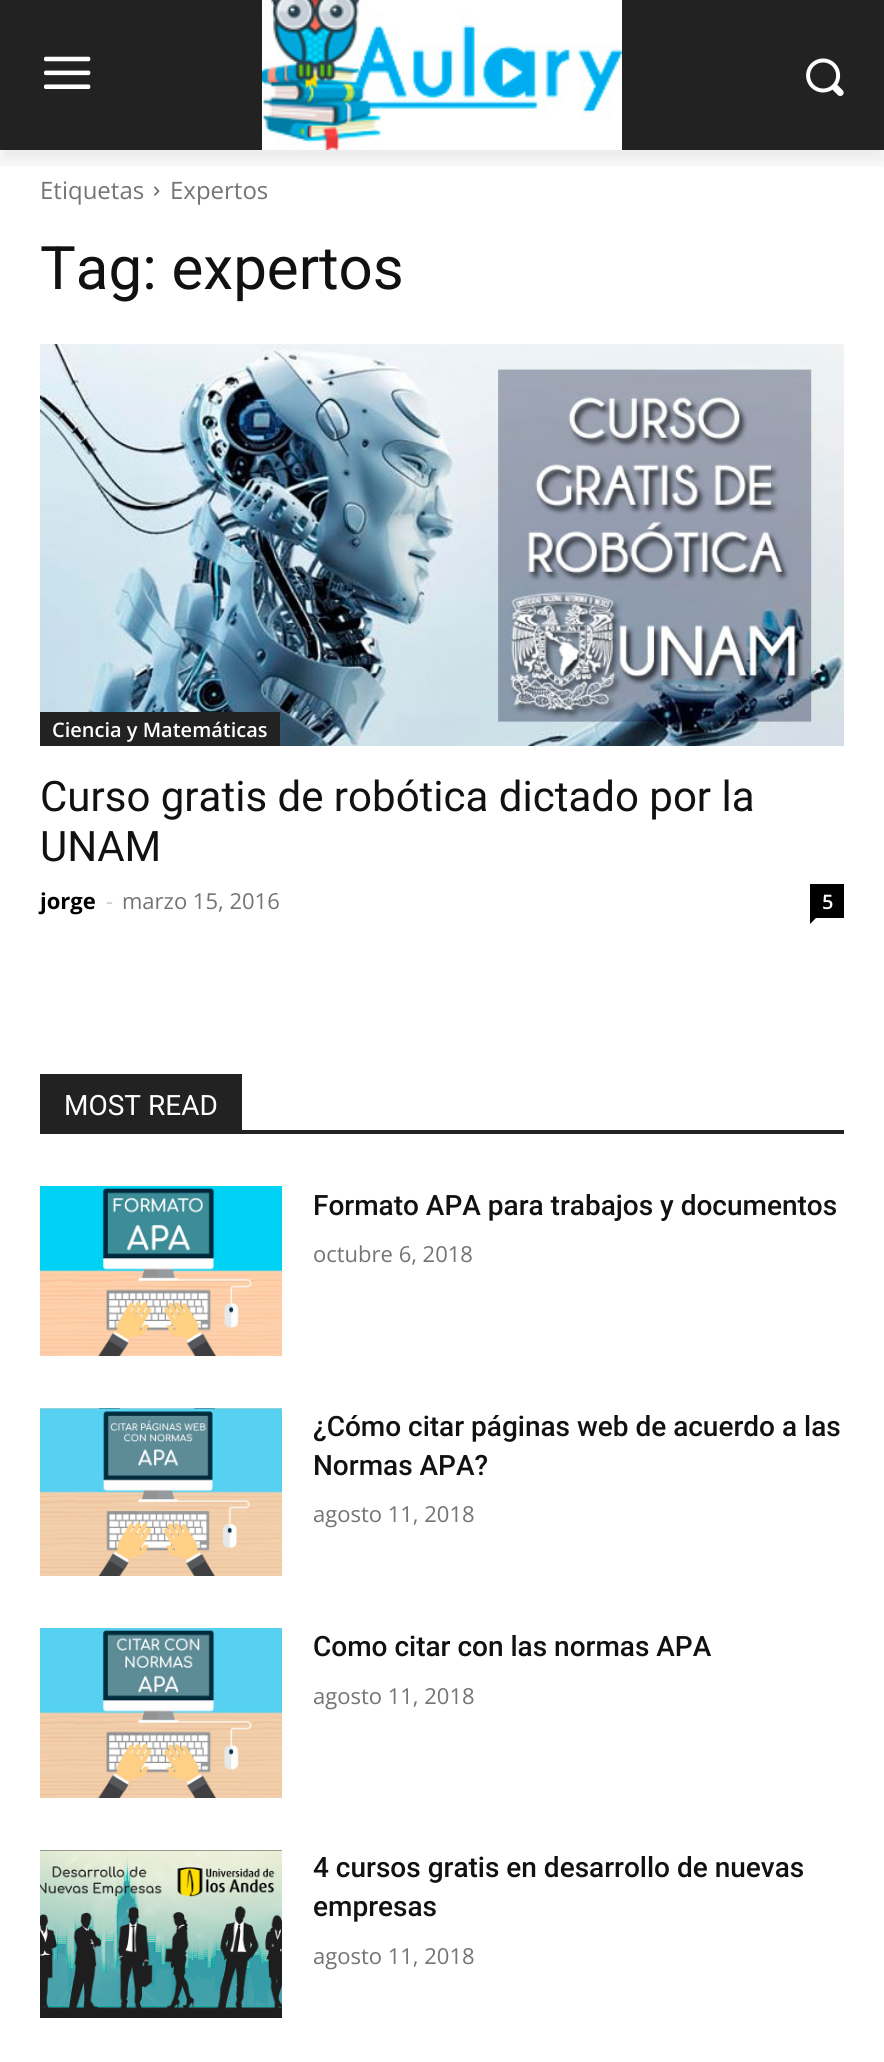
import math
import cairo

surface = cairo.ImageSurface(cairo.FORMAT_RGB24, 884, 2062)
c = cairo.Context(surface)
options = cairo.FontOptions()
options.set_hint_metrics(cairo.HINT_METRICS_OFF)
options.set_hint_style(cairo.HINT_STYLE_NONE)
c.set_font_options(options)
c.set_miter_limit(4)
def C(code):
 c.set_source_rgb(*(v / 255 for v in bytes.fromhex(code[-6:])))
def F(family, size, italic, bold):
 c.select_font_face(family, cairo.FONT_SLANT_ITALIC if italic else cairo.FONT_SLANT_NORMAL, cairo.FONT_WEIGHT_BOLD if bold else cairo.FONT_WEIGHT_NORMAL)
 c.set_font_size(size)
def T(x, y, s):
 c.move_to(x, y)
 c.show_text(s)
def R(x, y, w, h):
 c.rectangle(x, y, w, h)
 c.fill()
def Q(x, y, w, h, r):
 c.new_sub_path()
 for i, (u, v) in enumerate([(x + w - r, y + h - r), (x + r, y + h - r), (x + r, y + r), (x + w - r, y + r)]):
  c.arc(u, v, r, i * math.pi / 2, (i + 1) * math.pi / 2)
 c.close_path()
def S(x, y, w, h, r, blur, alpha):
 c.push_group_with_content(cairo.CONTENT_ALPHA)
 c.set_operator(cairo.OPERATOR_SOURCE)
 for i in range(15, -16, -2):
  e = blur * i / 6
  if min(w, h) + 2 * e > 0:
   c.set_source_rgba(0, 0, 0, alpha * math.erfc((i - 1) / 8.5) / 2)
   Q(x - e, y - e, w + 2 * e, h + 2 * e, max(0, min(r + e + blur * .6, min(w, h) / 2 + e)))
   c.fill()
 c.mask(c.pop_group())
def I(path, x, y, w, h):
 c.save()
 c.set_source_surface(cairo.ImageSurface.create_from_png(path), x, y)
 c.rectangle(x, y, w, h)
 c.fill()
 c.restore()
C('ffffff')
c.paint()
C('222222')
R(0,0,884,150)
I('1.png',44,56,47,33)
I('2.png',262,0,360,150)
I('3.png',806,58,38,38)
I('4.png',154,186,6,10)
c.save()
c.rectangle(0,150,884,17)
c.clip()
C('000000')
S(0,12,884,150,0,8,.08)
c.restore()
F('Open Sans',24,0,0)
C('747474')
T(40,199,'Etiquetas')
T(170,199,'Expertos')
F('Roboto',60,0,0)
C('111111')
T(40,289,'Tag: expertos')
I('5.png',40,344,804,402)
C('222222')
R(40,712,240,34)
F('Open Sans SemiBold',20,0,0)
C('ffffff')
T(52,737,'Ciencia y Matemáticas')
F('Roboto',42,0,0)
C('111111')
T(40,811,'Curso gratis de robótica dictado por la')
T(40,861,'UNAM')
F('Open Sans',22,0,1)
C('000000')
T(40,909,'jorge')
F('Open Sans',22,0,0)
C('cccccc')
T(106,909,'-')
C('747474')
T(122,909,'marzo 15, 2016')
C('000000')
R(810,884,34,34)
F('Open Sans SemiBold',20,0,0)
C('ffffff')
T(822,909,'5')
C('000000')
c.new_path()
c.move_to(810,918)
c.line_to(816,918)
c.line_to(810,924)
c.close_path()
c.fill()
C('222222')
R(40,1130,804,4)
R(40,1074,202,56)
F('Roboto',28,0,0)
C('ffffff')
T(64,1115,'MOST READ')
I('6.png',40,1186,242,170)
F('Roboto Medium',28,0,0)
C('111111')
T(313,1215,'Formato APA para trabajos y documentos')
F('Open Sans',22,0,0)
C('747474')
T(313,1262,'octubre 6, 2018')
I('7.png',40,1408,242,168)
F('Roboto Medium',28,0,0)
C('111111')
T(313,1436,'¿Cómo citar páginas web de acuerdo a las')
T(313,1475,'Normas APA?')
F('Open Sans',22,0,0)
C('747474')
T(313,1522,'agosto 11, 2018')
I('8.png',40,1628,242,170)
F('Roboto Medium',28,0,0)
C('111111')
T(313,1656,'Como citar con las normas APA')
F('Open Sans',22,0,0)
C('747474')
T(313,1704,'agosto 11, 2018')
I('9.png',40,1850,242,168)
F('Roboto Medium',28,0,0)
C('111111')
T(313,1877,'4 cursos gratis en desarrollo de nuevas')
T(313,1916,'empresas')
F('Open Sans',22,0,0)
C('747474')
T(313,1964,'agosto 11, 2018')
surface.write_to_png('o.png')
